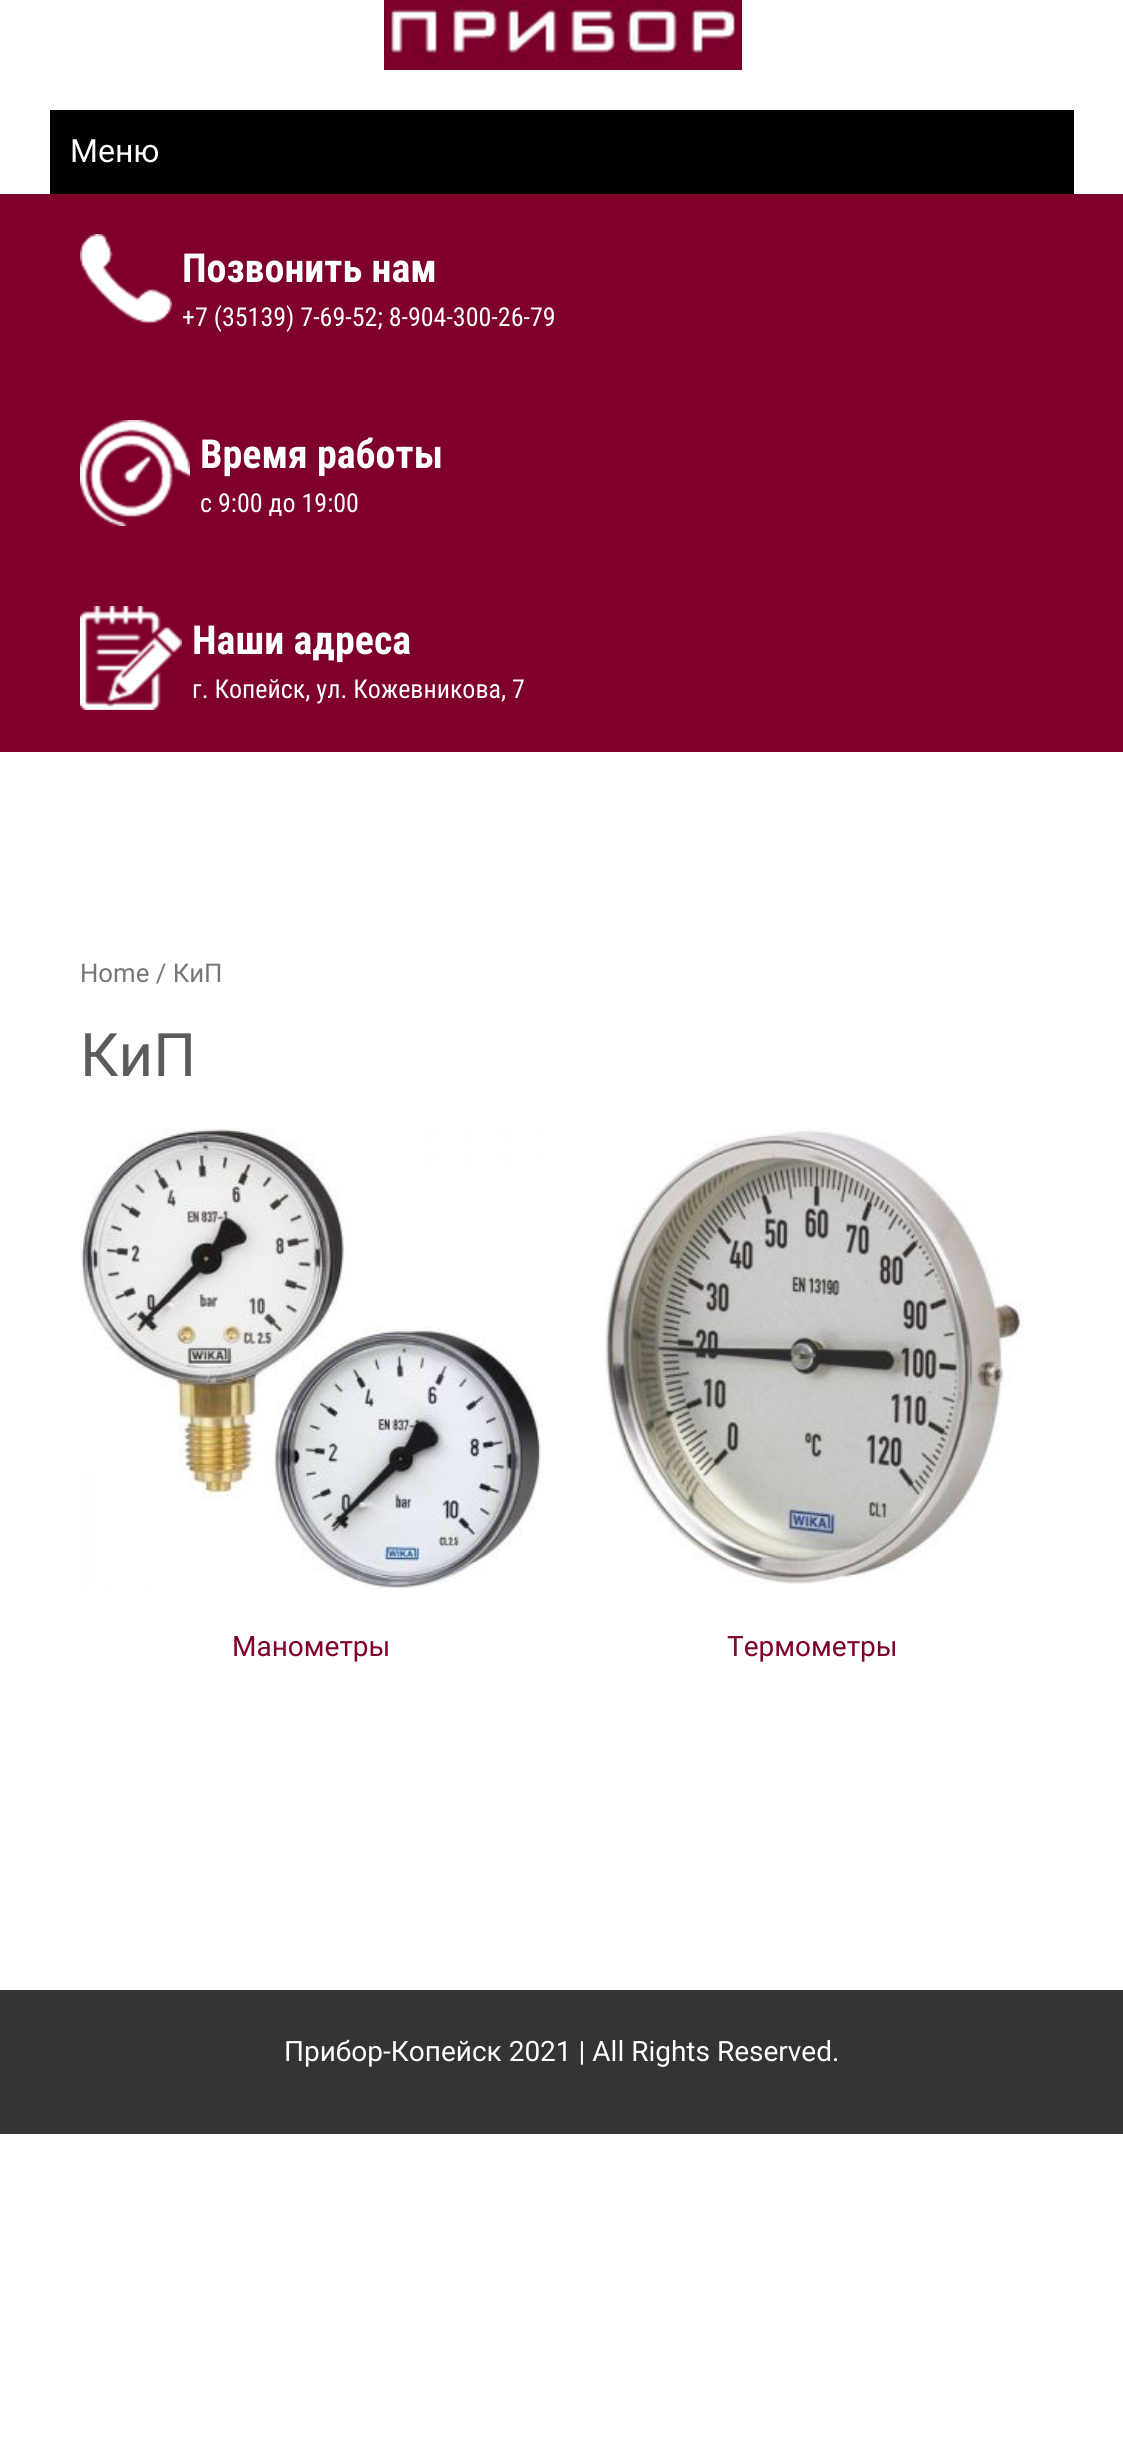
import math
import cairo

surface = cairo.ImageSurface(cairo.FORMAT_RGB24, 1123, 2442)
c = cairo.Context(surface)
options = cairo.FontOptions()
options.set_hint_metrics(cairo.HINT_METRICS_OFF)
options.set_hint_style(cairo.HINT_STYLE_NONE)
c.set_font_options(options)
c.set_miter_limit(4)
def C(code):
 c.set_source_rgb(*(v / 255 for v in bytes.fromhex(code[-6:])))
def F(family, size, italic, bold):
 c.select_font_face(family, cairo.FONT_SLANT_ITALIC if italic else cairo.FONT_SLANT_NORMAL, cairo.FONT_WEIGHT_BOLD if bold else cairo.FONT_WEIGHT_NORMAL)
 c.set_font_size(size)
def T(x, y, s):
 c.move_to(x, y)
 c.show_text(s)
def R(x, y, w, h):
 c.rectangle(x, y, w, h)
 c.fill()
def I(path, x, y, w, h):
 c.save()
 c.set_source_surface(cairo.ImageSurface.create_from_png(path), x, y)
 c.rectangle(x, y, w, h)
 c.fill()
 c.restore()
C('ffffff')
c.paint()
I('1.png',384,0,358,70)
C('000000')
R(50,110,1024,84)
F('Roboto',32,0,0)
C('ffffff')
T(70,162,'Меню')
C('7f002a')
R(0,194,1123,558)
I('2.png',80,234,92,90)
F('Roboto Condensed',40,0,1)
C('ffffff')
T(182,282,'Позвонить нам')
F('Roboto Condensed',26,0,0)
T(182,326,'+7 (35139) 7-69-52; 8-904-300-26-79')
I('3.png',80,420,110,106)
F('Roboto Condensed',40,0,1)
T(200,468,'Время работы')
F('Roboto Condensed',26,0,0)
T(200,512,'с 9:00 до 19:00')
I('4.png',80,606,102,104)
F('Roboto Condensed',40,0,1)
T(192,654,'Наши адреса')
F('Roboto Condensed',26,0,0)
T(192,698,'г. Копейск, ул. Кожевникова, 7')
F('Roboto',25.75,0,0)
C('767676')
T(80,982,'Home / КиП')
F('Roboto',60,0,0)
C('5b5b5b')
T(80,1076,'КиП')
I('5.png',80,1128,462,462)
F('Roboto',28,0,0)
C('7f002a')
T(232,1656,'Манометры')
I('6.png',604,1128,421,457)
T(727,1656,'Термометры')
C('343434')
R(0,1990,1123,144)
C('ffffff')
T(284,2061,'Прибор-Копейск 2021 | All Rights Reserved.')
surface.write_to_png('o.png')
